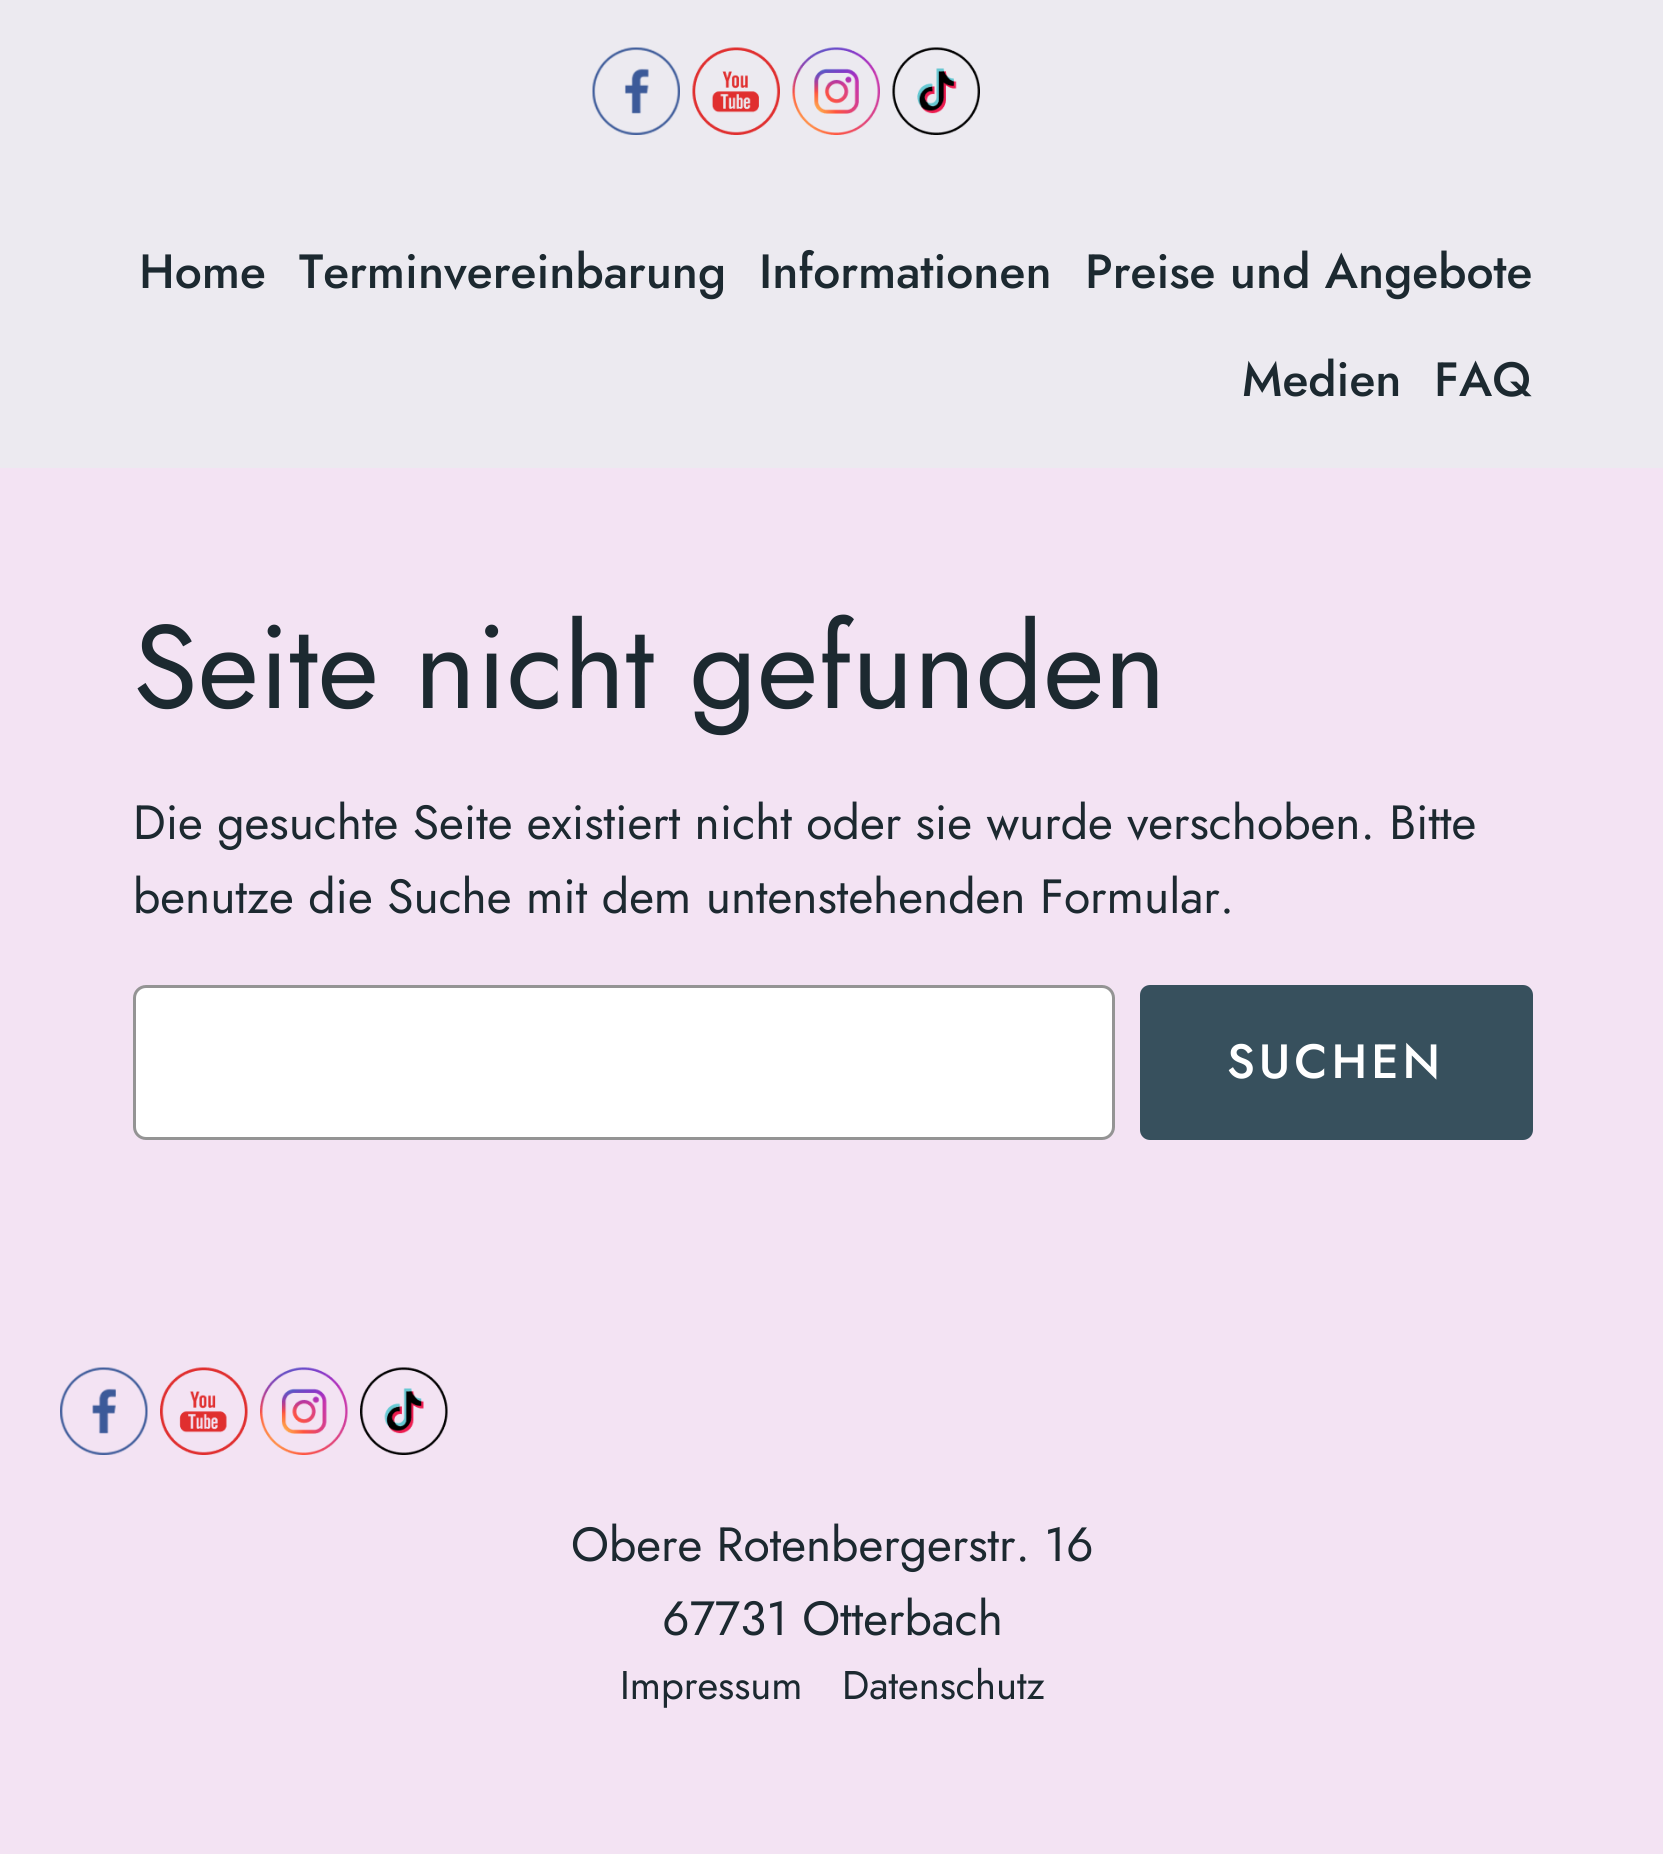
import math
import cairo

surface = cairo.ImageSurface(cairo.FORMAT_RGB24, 1663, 1854)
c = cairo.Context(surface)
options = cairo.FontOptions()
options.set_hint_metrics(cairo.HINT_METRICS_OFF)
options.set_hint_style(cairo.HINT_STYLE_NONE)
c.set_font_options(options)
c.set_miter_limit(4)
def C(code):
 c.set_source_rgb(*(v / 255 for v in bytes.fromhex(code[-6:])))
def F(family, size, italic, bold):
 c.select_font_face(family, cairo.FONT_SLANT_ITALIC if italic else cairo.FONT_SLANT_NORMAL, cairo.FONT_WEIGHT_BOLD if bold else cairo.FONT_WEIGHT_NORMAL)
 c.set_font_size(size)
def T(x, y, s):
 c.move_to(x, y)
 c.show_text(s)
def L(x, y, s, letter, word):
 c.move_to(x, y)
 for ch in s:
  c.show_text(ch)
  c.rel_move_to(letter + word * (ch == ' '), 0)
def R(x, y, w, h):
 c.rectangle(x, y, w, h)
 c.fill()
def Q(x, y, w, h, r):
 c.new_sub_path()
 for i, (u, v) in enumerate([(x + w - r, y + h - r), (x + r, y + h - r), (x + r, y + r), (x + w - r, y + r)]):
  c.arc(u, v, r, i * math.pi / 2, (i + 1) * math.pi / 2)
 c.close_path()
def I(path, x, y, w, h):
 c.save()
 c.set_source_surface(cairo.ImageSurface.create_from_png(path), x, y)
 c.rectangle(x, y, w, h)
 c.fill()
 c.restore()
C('f3e3f3')
c.paint()
C('eceaf0')
R(0,0,1663,468)
I('1.png',592,47,88,88)
I('2.png',692,47,88,88)
I('3.png',792,47,88,88)
I('4.png',892,47,88,88)
F('Jost Medium',48,0,0)
C('1c2930')
T(139,288,'Home')
T(299,288,'Terminvereinbarung')
T(759,288,'Informationen')
T(1085,288,'Preise und Angebote')
T(1242,396,'Medien')
T(1434,396,'FAQ')
F('Jost',118.25,0,0)
T(133,708,'Seite nicht gefunden')
F('Jost',48,0,0)
T(133,839,'Die gesuchte Seite existiert nicht oder sie wurde verschoben. Bitte')
T(133,913,'benutze die Suche mit dem untenstehenden Formular.')
C('ffffff')
Q(134.5,986.5,979,152,11.5)
c.fill_preserve()
C('949494')
c.set_line_width(3)
c.stroke()
C('37505d')
Q(1140,985,393,155,10)
c.fill()
F('Jost Medium',48,0,0)
C('ffffff')
L(1227,1078,'SUCHEN',4,0)
I('5.png',60,1367,88,88)
I('6.png',160,1367,88,88)
I('7.png',260,1367,88,88)
I('8.png',360,1367,88,88)
F('Jost',48,0,0)
C('1c2930')
T(571,1561,'Obere Rotenbergerstr. 16')
T(662,1635,'67731 Otterbach')
F('Jost',40,0,0)
T(620,1699,'Impressum')
T(842,1699,'Datenschutz')
surface.write_to_png('o.png')
